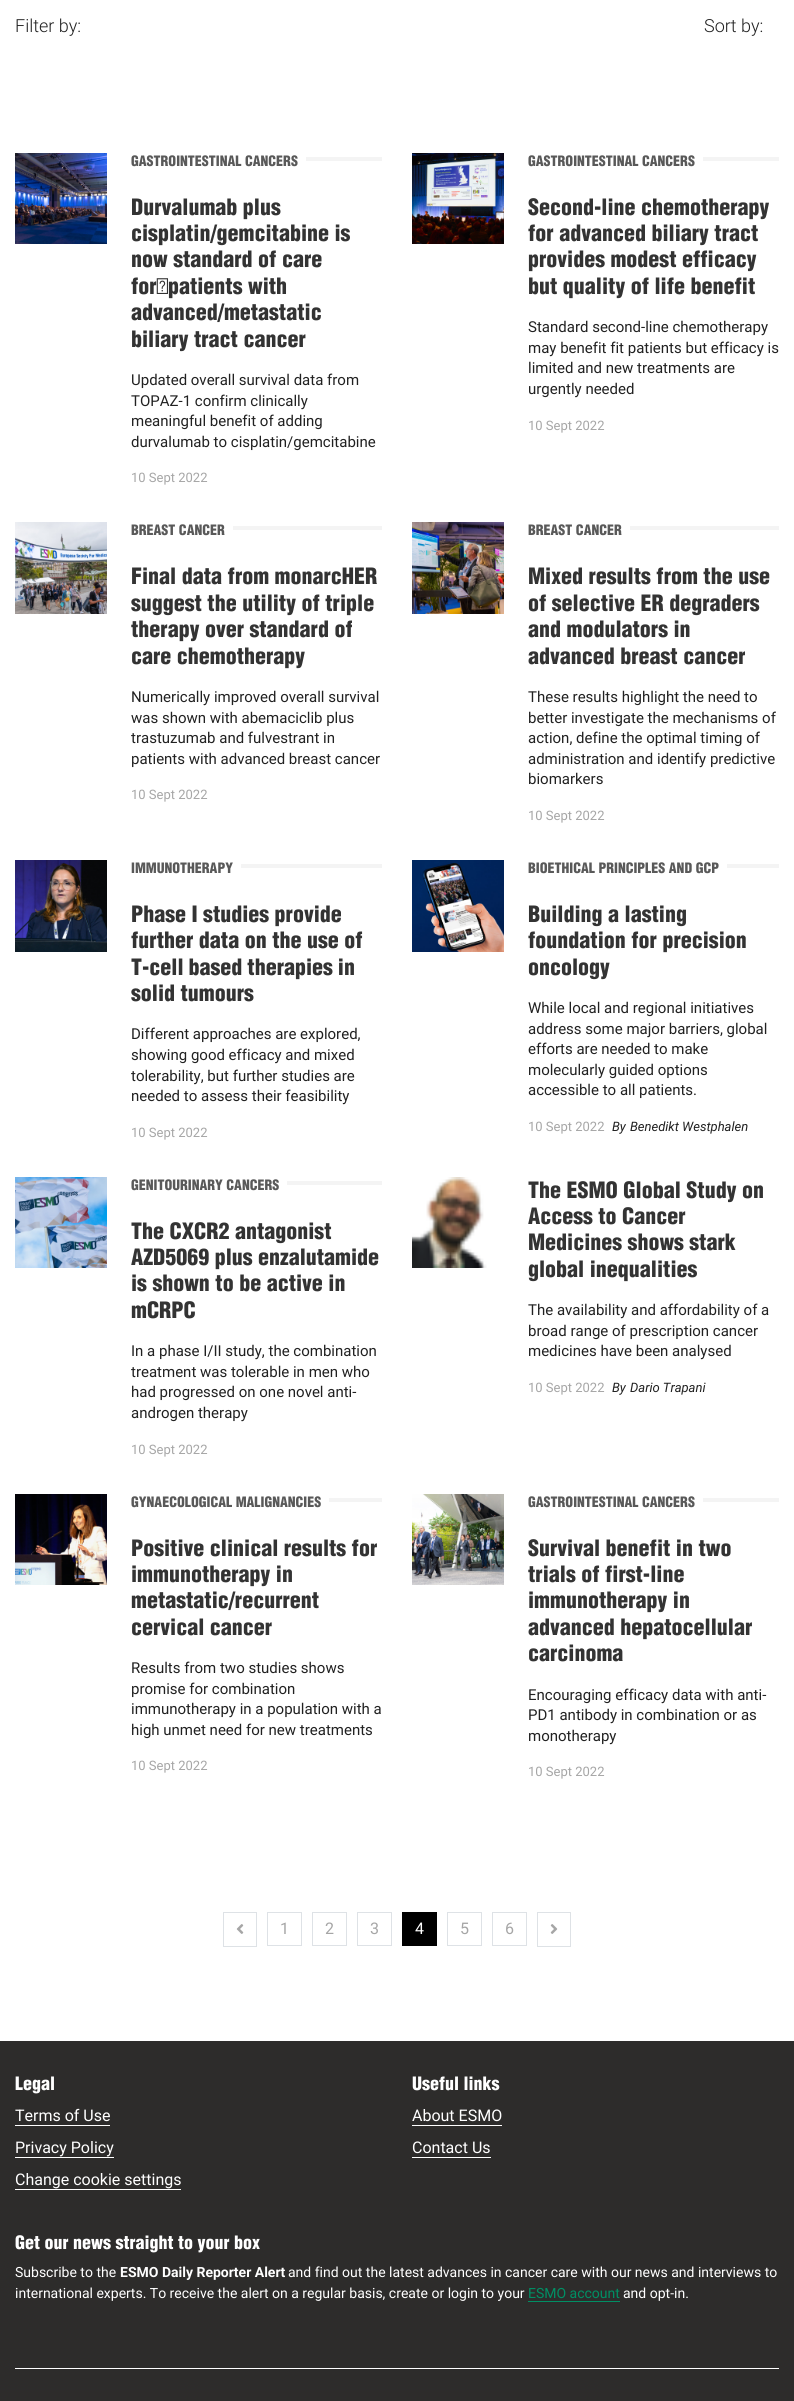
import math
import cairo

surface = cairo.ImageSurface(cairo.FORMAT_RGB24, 794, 2401)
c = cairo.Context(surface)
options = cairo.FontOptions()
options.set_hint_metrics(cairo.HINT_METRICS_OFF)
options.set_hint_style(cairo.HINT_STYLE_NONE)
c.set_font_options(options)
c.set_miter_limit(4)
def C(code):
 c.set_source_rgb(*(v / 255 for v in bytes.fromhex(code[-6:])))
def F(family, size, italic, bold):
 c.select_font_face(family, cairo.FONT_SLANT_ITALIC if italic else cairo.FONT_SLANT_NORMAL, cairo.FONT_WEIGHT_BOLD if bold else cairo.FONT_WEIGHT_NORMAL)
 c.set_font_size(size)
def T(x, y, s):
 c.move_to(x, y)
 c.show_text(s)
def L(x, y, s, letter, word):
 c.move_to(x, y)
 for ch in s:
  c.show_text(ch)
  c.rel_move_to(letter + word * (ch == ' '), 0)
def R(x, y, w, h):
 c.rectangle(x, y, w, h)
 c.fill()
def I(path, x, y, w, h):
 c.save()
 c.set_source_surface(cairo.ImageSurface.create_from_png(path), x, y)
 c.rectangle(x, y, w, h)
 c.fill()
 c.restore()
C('ffffff')
c.paint()
F('Roboto Light',18,0,0)
C('212121')
T(15,32,'Filter by:')
T(704,32,'Sort by:')
I('1.png',15,153,92,91)
F('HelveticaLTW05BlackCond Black',14,0,0)
C('595959')
T(131,166,'GASTROINTESTINAL CANCERS')
C('f4f4f4')
R(306,157,76,4)
F('HelveticaLTW05BlackCond Black',22,0,0)
C('333333')
T(131,215,'Durvalumab plus')
T(131,241,'cisplatin/gemcitabine is')
T(131,267,'now standard of care')
T(131,294,'for patients with')
T(131,320,'advanced/metastatic')
T(131,347,'biliary tract cancer')
F('Roboto',15,0,0)
C('212121')
T(131,385,'Updated overall survival data from')
T(131,406,'TOPAZ-1 confirm clinically')
T(131,426,'meaningful benefit of adding')
T(131,447,'durvalumab to cisplatin/gemcitabine')
F('Roboto',13,0,0)
C('a6a6a6')
T(131,482,'10 Sept 2022')
I('2.png',412,153,92,91)
F('HelveticaLTW05BlackCond Black',14,0,0)
C('595959')
T(528,166,'GASTROINTESTINAL CANCERS')
C('f4f4f4')
R(703,157,76,4)
F('HelveticaLTW05BlackCond Black',22,0,0)
C('333333')
T(528,215,'Second-line chemotherapy')
T(528,241,'for advanced biliary tract')
T(528,267,'provides modest efficacy')
T(528,294,'but quality of life benefit')
F('Roboto',15,0,0)
C('212121')
T(528,332,'Standard second-line chemotherapy')
T(528,353,'may benefit fit patients but efficacy is')
T(528,373,'limited and new treatments are')
T(528,394,'urgently needed')
F('Roboto',13,0,0)
C('a6a6a6')
T(528,430,'10 Sept 2022')
I('3.png',15,522,92,92)
F('HelveticaLTW05BlackCond Black',14,0,0)
C('595959')
T(131,535,'BREAST CANCER')
C('f4f4f4')
R(233,526,149,4)
F('HelveticaLTW05BlackCond Black',22,0,0)
C('333333')
T(131,584,'Final data from monarcHER')
T(131,611,'suggest the utility of triple')
T(131,637,'therapy over standard of')
T(131,664,'care chemotherapy')
F('Roboto',15,0,0)
C('212121')
T(131,702,'Numerically improved overall survival')
T(131,723,'was shown with abemaciclib plus')
T(131,743,'trastuzumab and fulvestrant in')
T(131,764,'patients with advanced breast cancer')
F('Roboto',13,0,0)
C('a6a6a6')
T(131,799,'10 Sept 2022')
I('4.png',412,522,92,92)
F('HelveticaLTW05BlackCond Black',14,0,0)
C('595959')
T(528,535,'BREAST CANCER')
C('f4f4f4')
R(630,526,149,4)
F('HelveticaLTW05BlackCond Black',22,0,0)
C('333333')
T(528,584,'Mixed results from the use')
T(528,611,'of selective ER degraders')
T(528,637,'and modulators in')
T(528,664,'advanced breast cancer')
F('Roboto',15,0,0)
C('212121')
T(528,702,'These results highlight the need to')
T(528,723,'better investigate the mechanisms of')
T(528,743,'action, define the optimal timing of')
T(528,764,'administration and identify predictive')
T(528,784,'biomarkers')
F('Roboto',13,0,0)
C('a6a6a6')
T(528,820,'10 Sept 2022')
I('5.png',15,860,92,92)
F('HelveticaLTW05BlackCond Black',14,0,0)
C('595959')
T(131,873,'IMMUNOTHERAPY')
C('f4f4f4')
R(241,864,141,4)
F('HelveticaLTW05BlackCond Black',22,0,0)
C('333333')
T(131,922,'Phase I studies provide')
T(131,948,'further data on the use of')
L(131,975,'T-cell based therapies in',0,-.5)
T(131,1001,'solid tumours')
F('Roboto',15,0,0)
C('212121')
T(131,1039,'Different approaches are explored,')
T(131,1060,'showing good efficacy and mixed')
T(131,1081,'tolerability, but further studies are')
T(131,1101,'needed to assess their feasibility')
F('Roboto',13,0,0)
C('a6a6a6')
T(131,1137,'10 Sept 2022')
I('6.png',412,860,92,92)
F('HelveticaLTW05BlackCond Black',14,0,0)
C('595959')
T(528,873,'BIOETHICAL PRINCIPLES AND GCP')
C('f4f4f4')
R(727,864,52,4)
F('HelveticaLTW05BlackCond Black',22,0,0)
C('333333')
T(528,922,'Building a lasting')
T(528,948,'foundation for precision')
T(528,975,'oncology')
F('Roboto',15,0,0)
C('212121')
T(528,1013,'While local and regional initiatives')
T(528,1034,'address some major barriers, global')
T(528,1054,'efforts are needed to make')
T(528,1075,'molecularly guided options')
T(528,1095,'accessible to all patients.')
F('Roboto',13,0,0)
C('a6a6a6')
T(528,1131,'10 Sept 2022')
F('Roboto',13,1,0)
C('212121')
T(612,1131,'By')
T(630,1131,'Benedikt Westphalen')
I('7.png',15,1177,92,91)
F('HelveticaLTW05BlackCond Black',14,0,0)
C('595959')
T(131,1190,'GENITOURINARY CANCERS')
C('f4f4f4')
R(287,1181,95,4)
F('HelveticaLTW05BlackCond Black',22,0,0)
C('333333')
T(131,1239,'The CXCR2 antagonist')
T(131,1265,'AZD5069 plus enzalutamide')
T(131,1291,'is shown to be active in')
T(131,1318,'mCRPC')
F('Roboto',15,0,0)
C('212121')
T(131,1356,'In a phase I/II study, the combination')
T(131,1377,'treatment was tolerable in men who')
T(131,1397,'had progressed on one novel anti-')
T(131,1418,'androgen therapy')
F('Roboto',13,0,0)
C('a6a6a6')
T(131,1454,'10 Sept 2022')
I('8.png',412,1177,75,91)
F('HelveticaLTW05BlackCond Black',22,0,0)
C('333333')
T(528,1198,'The ESMO Global Study on')
T(528,1224,'Access to Cancer')
T(528,1250,'Medicines shows stark')
T(528,1277,'global inequalities')
F('Roboto',15,0,0)
C('212121')
T(528,1315,'The availability and affordability of a')
T(528,1336,'broad range of prescription cancer')
T(528,1356,'medicines have been analysed')
F('Roboto',13,0,0)
C('a6a6a6')
T(528,1392,'10 Sept 2022')
F('Roboto',13,1,0)
C('212121')
T(612,1392,'By')
T(630,1392,'Dario Trapani')
I('9.png',15,1494,92,91)
F('HelveticaLTW05BlackCond Black',14,0,0)
C('595959')
T(131,1507,'GYNAECOLOGICAL MALIGNANCIES')
C('f4f4f4')
R(329,1498,53,4)
F('HelveticaLTW05BlackCond Black',22,0,0)
C('333333')
T(131,1556,'Positive clinical results for')
T(131,1582,'immunotherapy in')
T(131,1608,'metastatic/recurrent')
T(131,1635,'cervical cancer')
F('Roboto',15,0,0)
C('212121')
T(131,1673,'Results from two studies shows')
T(131,1694,'promise for combination')
T(131,1714,'immunotherapy in a population with a')
T(131,1735,'high unmet need for new treatments')
F('Roboto',13,0,0)
C('a6a6a6')
T(131,1770,'10 Sept 2022')
I('10.png',412,1494,92,91)
F('HelveticaLTW05BlackCond Black',14,0,0)
C('595959')
T(528,1507,'GASTROINTESTINAL CANCERS')
C('f4f4f4')
R(703,1498,76,4)
F('HelveticaLTW05BlackCond Black',22,0,0)
C('333333')
T(528,1556,'Survival benefit in two')
T(528,1582,'trials of first-line')
T(528,1608,'immunotherapy in')
T(528,1635,'advanced hepatocellular')
T(528,1661,'carcinoma')
F('Roboto',15,0,0)
C('212121')
T(528,1700,'Encouraging efficacy data with anti-')
T(528,1720,'PD1 antibody in combination or as')
T(528,1741,'monotherapy')
F('Roboto',13,0,0)
C('a6a6a6')
T(528,1776,'10 Sept 2022')
c.rectangle(223.5,1912.5,33,34)
C('dee2e6')
c.set_line_width(1)
c.stroke()
I('11.png',236,1924,8,10)
c.rectangle(267.5,1912.5,34,33)
c.stroke()
F('Roboto',16,0,0)
C('a6a6a6')
T(280,1934,'1')
c.rectangle(312.5,1912.5,34,33)
C('dee2e6')
c.stroke()
C('a6a6a6')
T(325,1934,'2')
c.rectangle(357.5,1912.5,34,33)
C('dee2e6')
c.stroke()
C('a6a6a6')
T(370,1934,'3')
C('000000')
R(402,1912,35,34)
C('ffffff')
T(415,1934,'4')
c.rectangle(447.5,1912.5,34,33)
C('dee2e6')
c.stroke()
C('a6a6a6')
T(460,1934,'5')
c.rectangle(492.5,1912.5,34,33)
C('dee2e6')
c.stroke()
C('a6a6a6')
T(505,1934,'6')
c.rectangle(537.5,1912.5,33,34)
C('dee2e6')
c.stroke()
I('12.png',550,1924,8,10)
C('2d2c2b')
R(0,2041,794,360)
F('HelveticaLTW05BlackCond Black',18,0,0)
C('ffffff')
T(15,2090,'Legal')
F('Roboto',16,0,0)
T(15,2121,'Terms of Use')
R(15,2125,95,1)
T(15,2153,'Privacy Policy')
R(15,2157,99,1)
T(15,2185,'Change cookie settings')
R(15,2189,166,1)
F('HelveticaLTW05BlackCond Black',18,0,0)
T(412,2090,'Useful links')
F('Roboto',16,0,0)
T(412,2121,'About ESMO')
R(412,2125,90,1)
T(412,2153,'Contact Us')
R(412,2157,79,1)
F('HelveticaLTW05BlackCond Black',18,0,0)
T(15,2249,'Get our news straight to your box')
F('Roboto',14,0,0)
T(15,2277,'Subscribe to the')
F('Roboto',14,0,1)
T(120,2277,'ESMO Daily Reporter Alert')
F('Roboto',14,0,0)
T(288,2277,'and find out the latest advances in cancer care with our news and interviews to')
T(15,2298,'international experts. To receive the alert on a regular basis, create or login to your')
C('008f64')
T(528,2298,'ESMO account')
R(528,2301,92,1)
C('ffffff')
T(623,2298,'and opt-in.')
R(15,2368,764,1)
surface.write_to_png('o.png')
